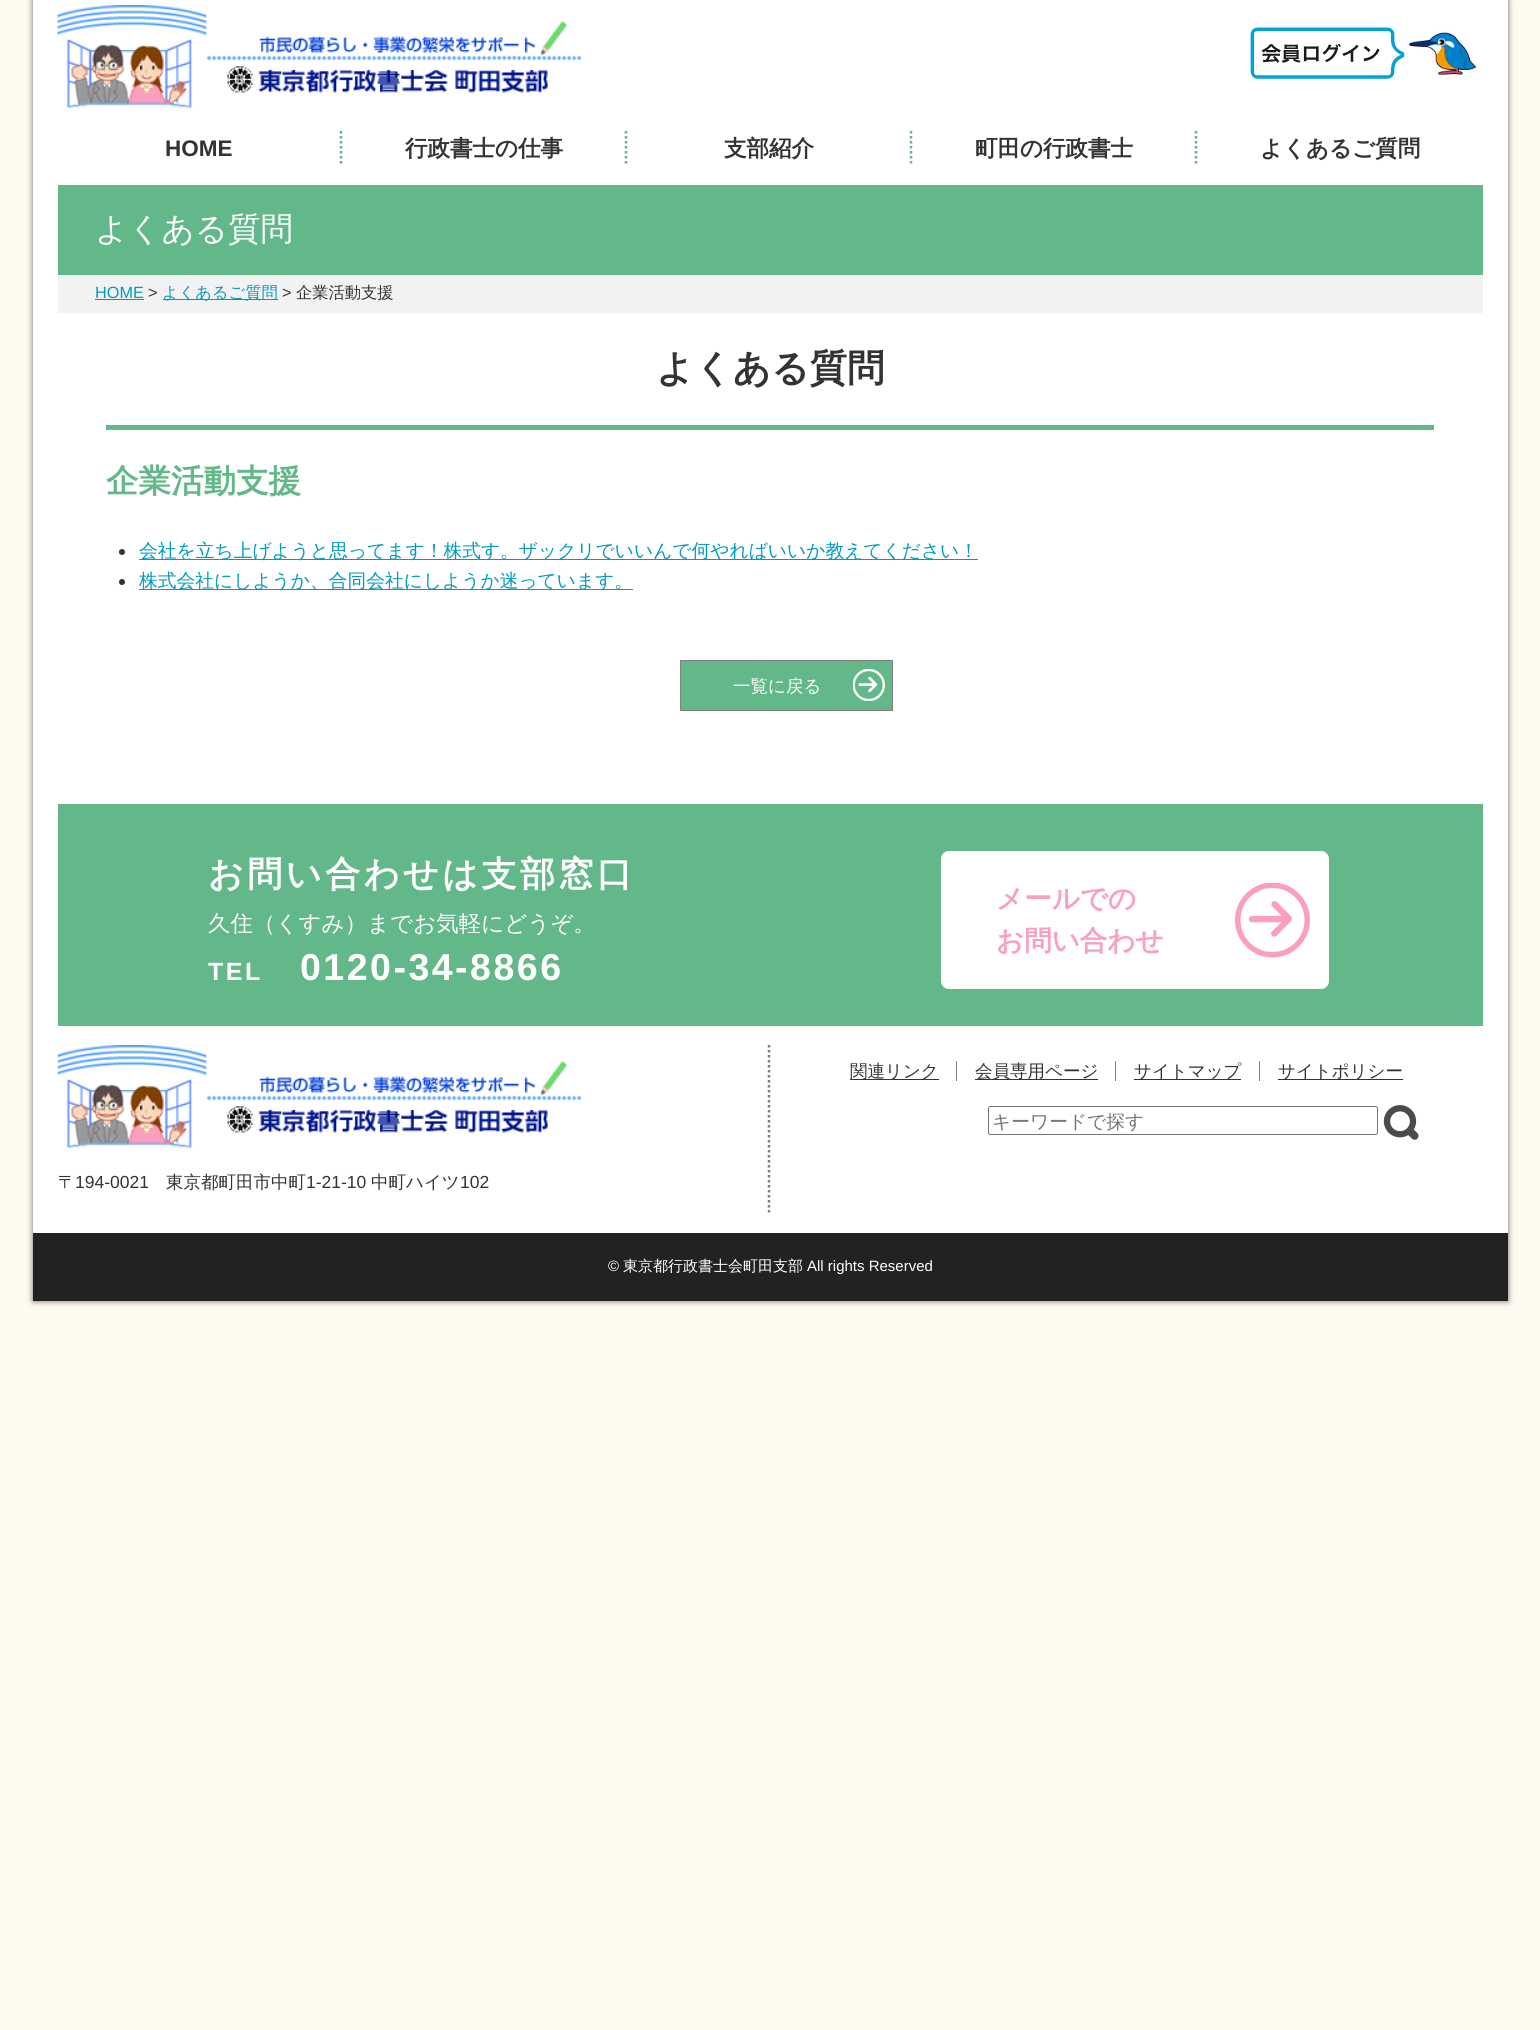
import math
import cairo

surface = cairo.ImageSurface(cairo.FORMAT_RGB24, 1540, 2030)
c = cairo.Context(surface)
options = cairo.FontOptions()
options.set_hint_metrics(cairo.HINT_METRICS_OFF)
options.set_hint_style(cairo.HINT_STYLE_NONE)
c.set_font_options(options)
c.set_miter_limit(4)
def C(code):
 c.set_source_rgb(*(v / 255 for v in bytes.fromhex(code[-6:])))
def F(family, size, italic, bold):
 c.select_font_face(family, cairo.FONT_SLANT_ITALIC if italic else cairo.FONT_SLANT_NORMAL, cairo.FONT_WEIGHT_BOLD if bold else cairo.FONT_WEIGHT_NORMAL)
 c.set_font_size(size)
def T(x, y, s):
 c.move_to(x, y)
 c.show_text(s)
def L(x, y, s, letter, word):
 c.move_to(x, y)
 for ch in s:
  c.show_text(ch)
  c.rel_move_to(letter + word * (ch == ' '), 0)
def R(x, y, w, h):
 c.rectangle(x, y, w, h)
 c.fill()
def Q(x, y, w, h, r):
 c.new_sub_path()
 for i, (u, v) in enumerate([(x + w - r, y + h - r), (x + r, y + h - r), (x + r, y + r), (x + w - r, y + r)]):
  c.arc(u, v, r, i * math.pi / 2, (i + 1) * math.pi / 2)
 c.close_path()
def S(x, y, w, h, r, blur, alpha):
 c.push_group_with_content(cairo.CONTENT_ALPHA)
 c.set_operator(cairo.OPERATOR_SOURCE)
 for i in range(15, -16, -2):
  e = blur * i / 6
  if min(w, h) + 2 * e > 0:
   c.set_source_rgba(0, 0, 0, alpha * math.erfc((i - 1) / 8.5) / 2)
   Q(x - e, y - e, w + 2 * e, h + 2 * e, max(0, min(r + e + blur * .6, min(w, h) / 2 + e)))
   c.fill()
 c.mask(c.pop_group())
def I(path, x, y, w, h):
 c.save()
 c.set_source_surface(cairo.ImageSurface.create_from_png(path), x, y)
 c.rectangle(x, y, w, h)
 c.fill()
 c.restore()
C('fffaef')
c.paint()
C('666666')
S(33,0,1475,1301,0,3,1)
C('ffffff')
R(33,0,1475,1233)
I('1.png',57,5,525,104)
I('2.png',1250,27,226,52)
c.new_path()
c.move_to(341,131)
c.line_to(341,166)
C('62b888')
c.set_line_width(2.5)
c.set_dash([2.5,2.5])
c.stroke()
F('Liberation Sans',22.5,0,1)
C('333333')
T(165,156,'HOME')
c.new_path()
c.move_to(626,131)
c.line_to(626,166)
C('62b888')
c.stroke()
F('WenQuanYi Zen Hei',22.5,0,1)
C('333333')
T(405,156,'行政書士の仕事')
c.new_path()
c.move_to(911,131)
c.line_to(911,166)
C('62b888')
c.stroke()
C('333333')
T(724,156,'支部紹介')
c.new_path()
c.move_to(1196,131)
c.line_to(1196,166)
C('62b888')
c.stroke()
C('333333')
T(975,156,'町田の行政書士')
T(1260,156,'よくあるご質問')
C('62b888')
R(58,185,1425,90)
F('WenQuanYi Zen Hei Medium',32.5,0,0)
C('ffffff')
T(95,240,'よくある質問')
C('f2f2f2')
R(58,275,1425,38)
F('Liberation Sans',16.25,0,0)
C('009bbf')
T(95,298,'HOME')
R(95,299,49,1)
C('333333')
T(148,298,'>')
C('009bbf')
R(163,299,115,1)
F('WenQuanYi Zen Hei Medium',16.25,0,0)
T(162,298,'よくあるご質問')
F('Liberation Sans',16.25,0,0)
C('333333')
T(282,298,'>')
F('WenQuanYi Zen Hei Medium',16.25,0,0)
T(296,298,'企業活動支援')
F('WenQuanYi Zen Hei',37.5,0,1)
T(656,381,'よくある質問')
C('62b888')
R(106,425,1328,5)
F('WenQuanYi Zen Hei',32.5,0,1)
T(106,492,'企業活動支援')
C('333333')
c.new_path()
c.arc(122,552,3,0,2 * math.pi)
c.fill()
C('009bbf')
R(139,559,839,1)
F('WenQuanYi Zen Hei Medium',18.75,0,0)
T(139,557,'会社を立ち上げようと思ってます！株式す。ザックリでいいんで何やればいいか教えてください！')
C('333333')
c.new_path()
c.arc(122,582,3,0,2 * math.pi)
c.fill()
C('009bbf')
R(139,589,494,1)
T(139,587,'株式会社にしようか、合同会社にしようか迷っています。')
C('62b888')
R(681,661,211,49)
I('3.png',853,669,32,32)
c.rectangle(680.5,660.5,212,50)
C('808080')
c.set_line_width(1)
c.set_dash([])
c.stroke()
F('WenQuanYi Zen Hei Medium',17.5,0,0)
C('ffffff')
T(733,692,'一覧に戻る')
C('62b888')
R(58,804,1425,222)
F('WenQuanYi Zen Hei',35,0,1)
C('ffffff')
L(208,886,'お問い合わせは支部窓口',3.5,0)
F('WenQuanYi Zen Hei Medium',22.5,0,0)
T(208,931,'久住（くすみ）までお気軽にどうぞ。')
F('Liberation Sans',25,0,1)
L(208,980,'TEL',2.5,0)
F('Liberation Sans',37.5,0,1)
L(300,980,'0120-34-8866',2.5,0)
Q(941,851,388,138,8)
c.fill()
I('4.png',1235,883,75,75)
F('WenQuanYi Zen Hei',27.5,0,1)
C('fb9fbd')
T(996,908,'メールでの')
T(996,950,'お問い合わせ')
C('333333')
R(850,1079,89,1)
F('WenQuanYi Zen Hei Medium',17.5,0,0)
T(850,1077,'関連リンク')
R(975,1079,123,1)
T(975,1077,'会員専用ページ')
C('808080')
R(956,1061,1,20)
C('333333')
R(1134,1079,107,1)
T(1134,1077,'サイトマップ')
C('808080')
R(1115,1061,1,20)
C('333333')
R(1278,1079,125,1)
T(1278,1077,'サイトポリシー')
C('808080')
R(1259,1061,1,20)
Q(988.5,1106.5,389,28,2)
C('767676')
c.stroke()
F('WenQuanYi Zen Hei Medium',18.75,0,0)
C('757575')
T(992,1128,'キーワードで探す')
I('5.png',1383,1105,36,35)
c.new_path()
c.move_to(769,1045)
c.line_to(769,1214)
C('808080')
c.set_line_width(2.5)
c.set_dash([2.5,2.5])
c.stroke()
I('6.png',57,1045,525,104)
F('WenQuanYi Zen Hei Medium',17.5,0,0)
C('333333')
T(58,1188,'〒')
F('Liberation Sans',17.5,0,0)
T(75,1188,'194-0021')
F('WenQuanYi Zen Hei Medium',17.5,0,0)
T(166,1188,'東京都町田市中町')
F('Liberation Sans',17.5,0,0)
T(306,1188,'1-21-10')
F('WenQuanYi Zen Hei Medium',17.5,0,0)
T(371,1188,'中町ハイツ')
F('Liberation Sans',17.5,0,0)
T(460,1188,'102')
C('222222')
R(33,1233,1475,68)
F('Liberation Sans',15,0,0)
C('ffffff')
T(608,1271,'©')
F('WenQuanYi Zen Hei Medium',15,0,0)
T(623,1271,'東京都行政書士会町田支部')
F('Liberation Sans',15,0,0)
T(807,1271,'All rights Reserved')
surface.write_to_png('o.png')
